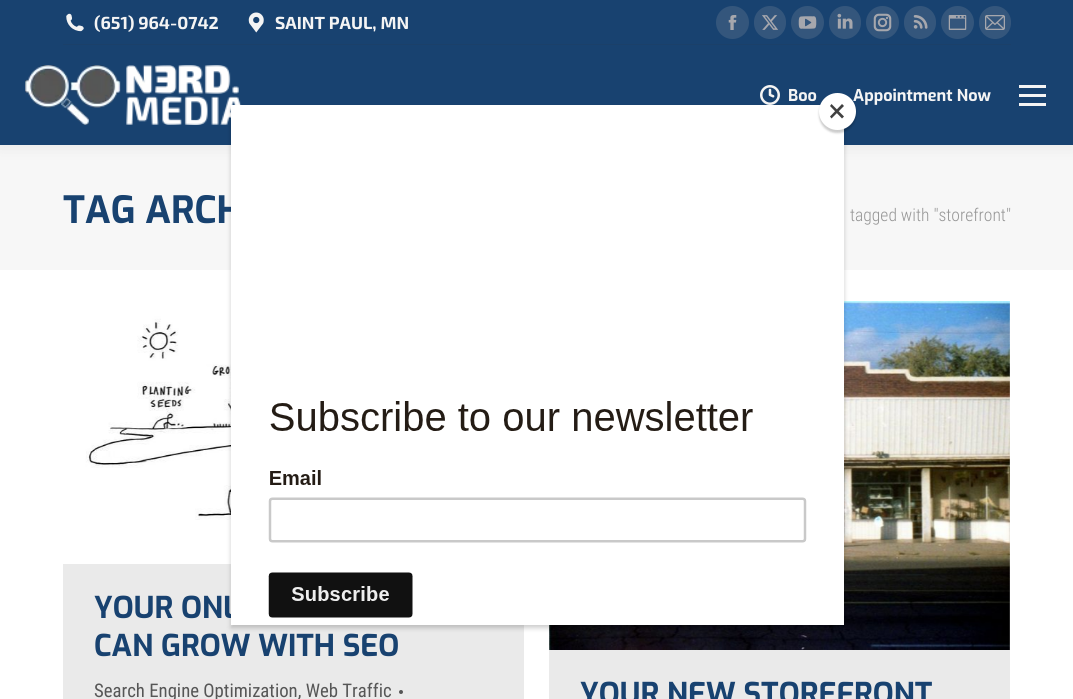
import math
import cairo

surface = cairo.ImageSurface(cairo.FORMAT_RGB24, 1073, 699)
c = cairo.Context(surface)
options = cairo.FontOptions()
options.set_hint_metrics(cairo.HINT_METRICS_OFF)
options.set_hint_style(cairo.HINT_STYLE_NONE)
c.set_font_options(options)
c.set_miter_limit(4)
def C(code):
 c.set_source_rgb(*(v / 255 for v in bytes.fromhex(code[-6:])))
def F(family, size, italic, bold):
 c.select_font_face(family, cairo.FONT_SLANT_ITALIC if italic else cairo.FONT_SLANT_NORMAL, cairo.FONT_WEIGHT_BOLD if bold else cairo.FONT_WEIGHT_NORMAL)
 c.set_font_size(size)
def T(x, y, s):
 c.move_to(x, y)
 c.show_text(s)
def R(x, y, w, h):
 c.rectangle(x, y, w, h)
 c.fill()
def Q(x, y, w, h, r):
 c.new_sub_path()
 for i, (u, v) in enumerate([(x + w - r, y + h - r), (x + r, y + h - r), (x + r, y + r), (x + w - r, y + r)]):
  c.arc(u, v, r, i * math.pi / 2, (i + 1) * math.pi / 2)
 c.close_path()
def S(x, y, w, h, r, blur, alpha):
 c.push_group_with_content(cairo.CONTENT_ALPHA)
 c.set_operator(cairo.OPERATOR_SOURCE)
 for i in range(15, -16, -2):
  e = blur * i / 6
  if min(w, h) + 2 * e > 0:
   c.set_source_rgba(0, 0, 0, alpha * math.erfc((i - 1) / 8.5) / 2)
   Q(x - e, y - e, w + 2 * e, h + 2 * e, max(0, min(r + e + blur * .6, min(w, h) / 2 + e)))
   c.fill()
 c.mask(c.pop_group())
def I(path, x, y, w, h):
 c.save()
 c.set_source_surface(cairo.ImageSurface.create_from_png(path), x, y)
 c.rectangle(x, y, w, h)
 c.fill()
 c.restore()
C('ffffff')
c.paint()
C('f7f7f7')
R(0,145,1073,125)
C('000000')
S(-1,-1,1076,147,0,9.5,.07)
C('184270')
R(0,0,1073,145)
I('1.png',66,13,18,19)
F('Exo 2',17.5,0,1)
C('f4f4f4')
T(94,29,'(651) 964-0742')
I('2.png',248,12,16,21)
T(275,29,'SAINT PAUL, MN')
C('34567c')
c.new_path()
c.arc(732.5,22.5,16.5,0,2 * math.pi)
c.fill()
I('3.png',728,15,9,15)
Q(754,6,32,33,16)
c.fill()
I('4.png',762,15,16,15)
c.arc(807.5,22.5,16.5,0,2 * math.pi)
c.fill()
I('5.png',798,16,19,13)
Q(829,6,32,33,16)
c.fill()
I('6.png',837,13,16,16)
c.arc(882.5,22.5,16.5,0,2 * math.pi)
c.fill()
I('7.png',873,13,19,19)
Q(904,6,32,33,16)
c.fill()
I('8.png',913,15,15,14)
c.arc(957.5,22.5,16.5,0,2 * math.pi)
c.fill()
I('9.png',948,15,19,15)
Q(979,6,32,33,16)
c.fill()
I('10.png',985,15,20,15)
C('1b4069')
R(63,44,948,1)
I('11.png',25,65,217,60)
I('12.png',760,85,20,20)
F('Exo',16.25,0,1)
C('f4f4f4')
T(788,101,'Boo')
T(853,101,'Appointment Now')
R(1019,85,27,3)
R(1019,94,27,3)
R(1019,103,27,3)
F('Exo',37.5,0,1)
C('184270')
T(63,223,'TAG ARCH')
F('Roboto Condensed Light',17.5,0,0)
C('969696')
T(850,221,'tagged with "storefront"')
C('eaeaea')
R(63,564,461,135)
I('13.png',63,301,168,263)
F('Exo',30,0,1)
C('184270')
T(94,618,'YOUR ONL')
T(94,656,'CAN GROW WITH SEO')
F('Roboto Condensed',18.75,0,0)
C('565656')
T(94,697,'Search Engine Optimization, Web Traffic')
c.new_path()
c.arc(401,692,2,0,2 * math.pi)
c.fill()
C('eaeaea')
R(549,301,461,398)
I('14.png',549,301,461,349)
F('Exo',30,0,1)
C('184270')
T(580,704,'YOUR NEW STOREFRONT')
C('000000')
S(231,108,613,520,0,2.5,.2)
I('15.png',231,105,613,520)
S(819,95,37,38,18.5,1,.2)
C('ffffff')
c.arc(837.5,111.5,18.5,0,2 * math.pi)
c.fill()
C('414141')
c.new_path()
c.move_to(842,104)
c.line_to(844,106)
c.line_to(831.5,118.5)
c.line_to(830,116.5)
c.close_path()
c.fill()
c.new_path()
c.move_to(830,106)
c.line_to(831.5,104)
c.line_to(844,116.5)
c.line_to(842,118.5)
c.close_path()
c.fill()
surface.write_to_png('o.png')
